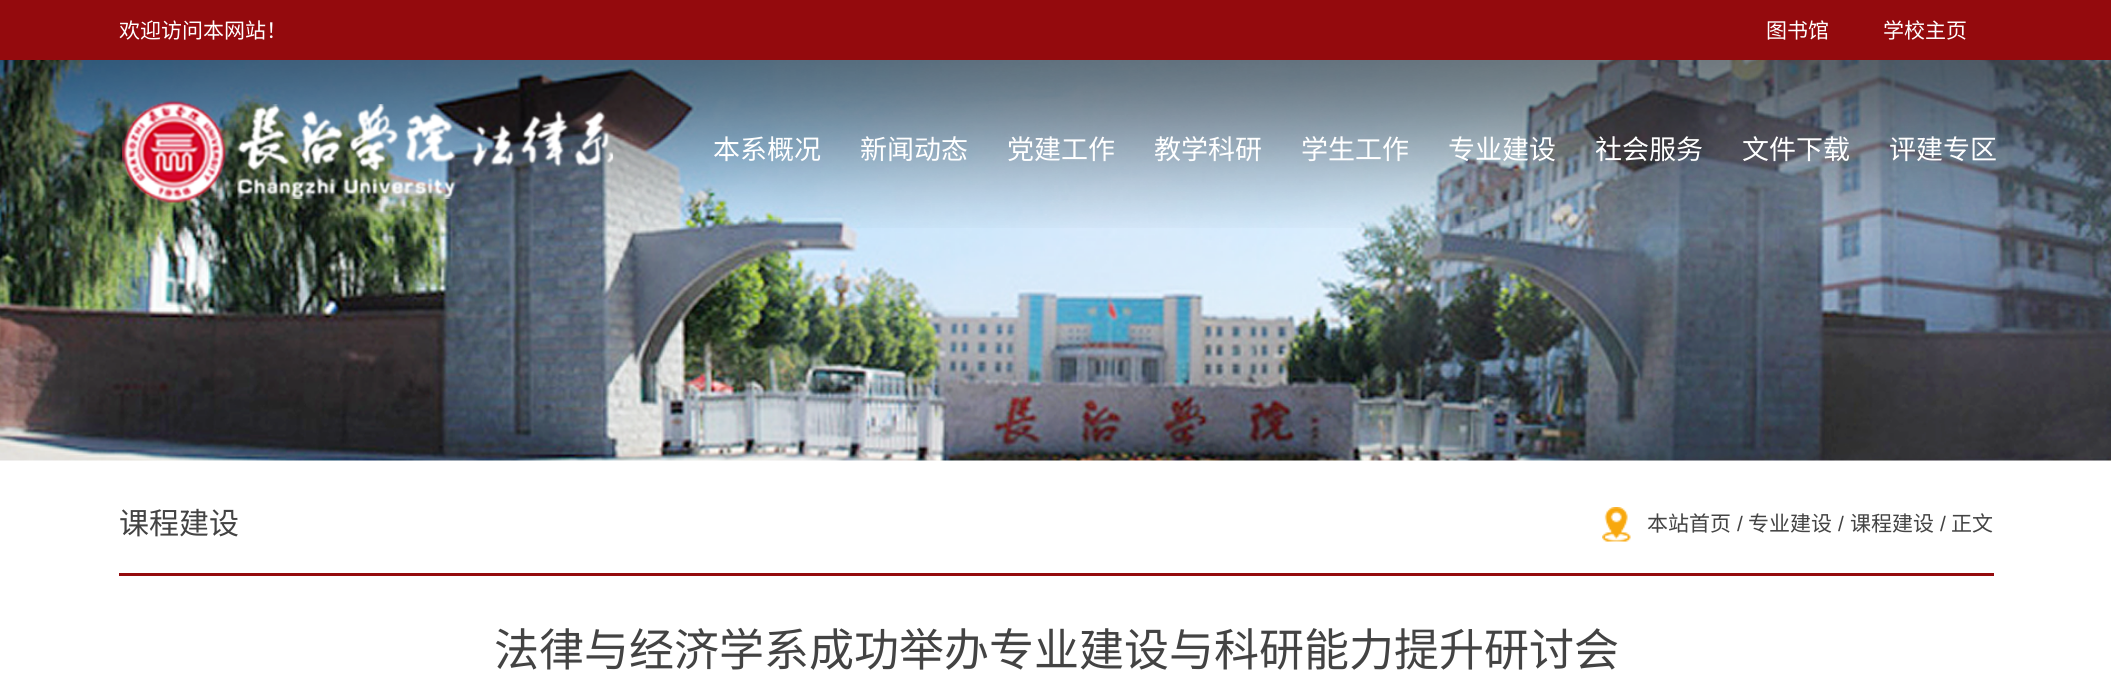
import math
import cairo

surface = cairo.ImageSurface(cairo.FORMAT_RGB24, 2111, 681)
c = cairo.Context(surface)
options = cairo.FontOptions()
options.set_hint_metrics(cairo.HINT_METRICS_OFF)
options.set_hint_style(cairo.HINT_STYLE_NONE)
c.set_font_options(options)
c.set_miter_limit(4)
def C(code):
 c.set_source_rgb(*(v / 255 for v in bytes.fromhex(code[-6:])))
def F(family, size, italic, bold):
 c.select_font_face(family, cairo.FONT_SLANT_ITALIC if italic else cairo.FONT_SLANT_NORMAL, cairo.FONT_WEIGHT_BOLD if bold else cairo.FONT_WEIGHT_NORMAL)
 c.set_font_size(size)
def T(x, y, s):
 c.move_to(x, y)
 c.show_text(s)
def R(x, y, w, h):
 c.rectangle(x, y, w, h)
 c.fill()
def I(path, x, y, w, h):
 c.save()
 c.set_source_surface(cairo.ImageSurface.create_from_png(path), x, y)
 c.rectangle(x, y, w, h)
 c.fill()
 c.restore()
C('ffffff')
c.paint()
C('940a0d')
R(0,0,2111,60)
F('Noto Sans CJK SC',21,0,0)
C('ffffff')
T(119,38,'欢迎访问本网站！')
T(1766,38,'图书馆')
T(1883,38,'学校主页')
I('1.png',0,60,2111,401)
I('2.png',0,60,2111,168)
I('3.png',122,100,507,103)
F('Noto Sans CJK SC',27,0,0)
T(713,159,'本系概况')
T(860,159,'新闻动态')
T(1007,159,'党建工作')
T(1154,159,'教学科研')
T(1301,159,'学生工作')
T(1448,159,'专业建设')
T(1595,159,'社会服务')
T(1742,159,'文件下载')
T(1889,159,'评建专区')
C('940a0d')
R(119,573,1875,3)
F('Noto Sans CJK SC',30,0,0)
C('434343')
T(119,534,'课程建设')
I('4.png',1602,507,29,35)
F('Noto Sans CJK SC',21,0,0)
T(1647,531,'本站首页')
F('Liberation Sans',21,0,0)
T(1737,531,'/')
F('Noto Sans CJK SC',21,0,0)
T(1748,531,'专业建设')
F('Liberation Sans',21,0,0)
T(1838,531,'/')
F('Noto Sans CJK SC',21,0,0)
T(1850,531,'课程建设')
F('Liberation Sans',21,0,0)
T(1940,531,'/')
F('Noto Sans CJK SC',21,0,0)
T(1951,531,'正文')
F('Noto Sans CJK SC',45,0,0)
T(494,666,'法律与经济学系成功举办专业建设与科研能力提升研讨会')
surface.write_to_png('o.png')
